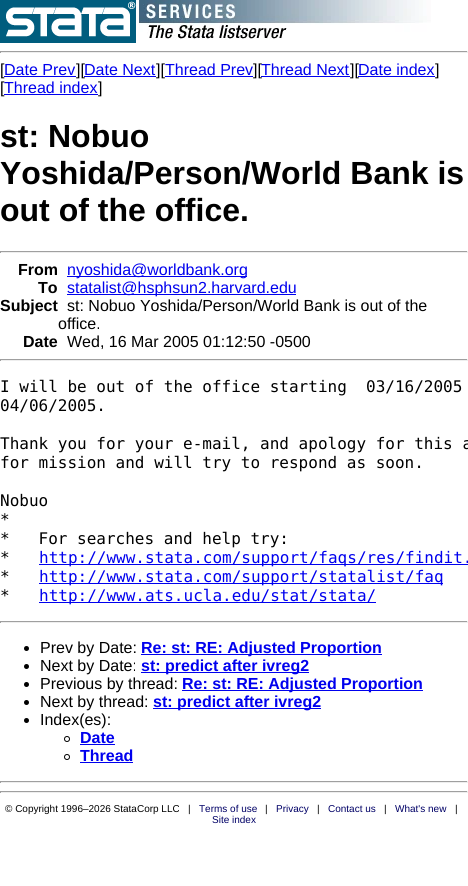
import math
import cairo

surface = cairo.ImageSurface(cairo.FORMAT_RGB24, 468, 886)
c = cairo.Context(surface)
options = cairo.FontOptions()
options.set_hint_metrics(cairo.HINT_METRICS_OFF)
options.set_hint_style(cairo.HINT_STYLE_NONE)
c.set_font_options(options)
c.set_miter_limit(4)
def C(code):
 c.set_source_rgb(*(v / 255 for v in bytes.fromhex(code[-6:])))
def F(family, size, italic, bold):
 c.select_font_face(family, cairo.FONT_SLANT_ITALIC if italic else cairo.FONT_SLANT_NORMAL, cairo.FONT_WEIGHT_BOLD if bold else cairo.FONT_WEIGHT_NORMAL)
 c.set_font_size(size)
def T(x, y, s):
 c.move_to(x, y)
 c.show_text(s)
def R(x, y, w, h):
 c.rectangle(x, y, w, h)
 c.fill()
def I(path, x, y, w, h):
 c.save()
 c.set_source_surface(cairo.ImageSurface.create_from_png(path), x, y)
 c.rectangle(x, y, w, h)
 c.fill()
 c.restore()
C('ffffff')
c.paint()
I('1.png',0,0,136,43)
I('2.png',139,0,292,40)
C('9f9f9f')
R(0,51,468,1)
C('eeeeee')
R(467,51,1,2)
R(0,52,468,1)
C('9f9f9f')
R(0,51,1,2)
F('Liberation Sans',16,0,0)
C('000000')
T(0,75,'[')
C('0000ee')
T(4,75,'Date Prev')
R(4,76,72,1)
C('000000')
T(76,75,'][')
C('0000ee')
T(84,75,'Date Next')
R(84,76,72,1)
C('000000')
T(156,75,'][')
C('0000ee')
T(165,75,'Thread Prev')
R(165,76,88,1)
C('000000')
T(253,75,'][')
C('0000ee')
T(261,75,'Thread Next')
R(261,76,89,1)
C('000000')
T(350,75,'][')
C('0000ee')
T(358,75,'Date index')
R(358,76,77,1)
C('000000')
T(435,75,']')
T(0,93,'[')
C('0000ee')
T(4,93,'Thread index')
R(4,94,94,1)
C('000000')
T(98,93,']')
F('Liberation Sans',32,0,1)
T(0,147,'st: Nobuo')
T(0,184,'Yoshida/Person/World Bank is')
T(0,221,'out of the office.')
C('9f9f9f')
R(0,251,468,1)
C('eeeeee')
R(467,251,1,2)
R(0,252,468,1)
C('9f9f9f')
R(0,251,1,2)
F('Liberation Sans',16,0,1)
C('000000')
T(18,275,'From')
C('0000ee')
R(67,276,180,1)
F('Liberation Sans',16,0,0)
T(67,275,'nyoshida@worldbank.org')
F('Liberation Sans',16,0,1)
C('000000')
T(38,293,'To')
C('0000ee')
R(67,294,229,1)
F('Liberation Sans',16,0,0)
T(67,293,'statalist@hsphsun2.harvard.edu')
F('Liberation Sans',16,0,1)
C('000000')
T(0,311,'Subject')
F('Liberation Sans',16,0,0)
T(67,311,'st: Nobuo Yoshida/Person/World Bank is out of the')
T(58,329,'office.')
F('Liberation Sans',16,0,1)
T(23,347,'Date')
F('Liberation Sans',16,0,0)
T(67,347,'Wed, 16 Mar 2005 01:12:50 -0500')
C('9f9f9f')
R(0,359,468,1)
C('eeeeee')
R(467,359,1,2)
R(0,360,468,1)
C('9f9f9f')
R(0,359,1,2)
F('DejaVu Sans Mono',16,0,0)
C('000000')
T(0,392,'I will be out of the office starting  03/16/2005')
T(0,411,'04/06/2005.')
T(0,449,'Thank you for your e-mail, and apology for this a')
T(0,468,'for mission and will try to respond as soon.')
T(0,506,'Nobuo')
T(0,525,'*')
T(0,544,'*   For searches and help try:')
T(0,563,'*')
C('0000ee')
R(39,564,429,1)
T(39,563,'http://www.stata.com/support/faqs/res/findit.')
C('000000')
T(0,582,'*')
C('0000ee')
R(39,583,404,1)
T(39,582,'http://www.stata.com/support/statalist/faq')
C('000000')
T(0,601,'*')
C('0000ee')
R(39,602,337,1)
T(39,601,'http://www.ats.ucla.edu/stat/stata/')
C('9f9f9f')
R(0,621,468,1)
C('eeeeee')
R(467,621,1,2)
R(0,622,468,1)
C('9f9f9f')
R(0,621,1,2)
C('000000')
c.new_path()
c.arc(26.5,648.5,2.5,0,2 * math.pi)
c.fill()
F('Liberation Sans',16,0,0)
T(40,653,'Prev by Date:')
C('0000ee')
R(141,654,241,1)
F('Liberation Sans',16,0,1)
T(141,653,'Re: st: RE: Adjusted Proportion')
C('000000')
c.new_path()
c.arc(26.5,666.5,2.5,0,2 * math.pi)
c.fill()
F('Liberation Sans',16,0,0)
T(40,671,'Next by Date:')
C('0000ee')
R(141,672,168,1)
F('Liberation Sans',16,0,1)
T(141,671,'st: predict after ivreg2')
C('000000')
c.new_path()
c.arc(26.5,684.5,2.5,0,2 * math.pi)
c.fill()
F('Liberation Sans',16,0,0)
T(40,689,'Previous by thread:')
C('0000ee')
R(182,690,241,1)
F('Liberation Sans',16,0,1)
T(182,689,'Re: st: RE: Adjusted Proportion')
C('000000')
c.new_path()
c.arc(26.5,702.5,2.5,0,2 * math.pi)
c.fill()
F('Liberation Sans',16,0,0)
T(40,707,'Next by thread:')
C('0000ee')
R(153,708,168,1)
F('Liberation Sans',16,0,1)
T(153,707,'st: predict after ivreg2')
C('000000')
c.new_path()
c.arc(26.5,720.5,2.5,0,2 * math.pi)
c.fill()
F('Liberation Sans',16,0,0)
T(40,725,'Index(es):')
c.new_path()
c.arc(67,739,2.5,0,2 * math.pi)
c.set_line_width(1)
c.stroke()
F('Liberation Sans',16,0,1)
C('0000ee')
T(80,743,'Date')
R(80,744,35,1)
c.new_path()
c.arc(67,757,2.5,0,2 * math.pi)
C('000000')
c.stroke()
C('0000ee')
T(80,761,'Thread')
R(80,762,53,1)
C('9f9f9f')
R(0,781,468,1)
C('eeeeee')
R(467,781,1,2)
R(0,782,468,1)
C('9f9f9f')
R(0,781,1,2)
R(0,791,468,1)
C('eeeeee')
R(467,791,1,2)
R(0,792,468,1)
C('9f9f9f')
R(0,791,1,2)
F('Liberation Sans',10,0,0)
C('000000')
T(5,812,'© Copyright 1996–2026 StataCorp LLC')
T(188,812,'|')
C('000066')
T(199,812,'Terms of use')
C('000000')
T(265,812,'|')
C('000066')
T(276,812,'Privacy')
C('000000')
T(317,812,'|')
C('000066')
T(328,812,'Contact us')
C('000000')
T(384,812,'|')
C('000066')
T(395,812,'What\'s new')
C('000000')
T(455,812,'|')
C('000066')
T(212,823,'Site index')
surface.write_to_png('o.png')
